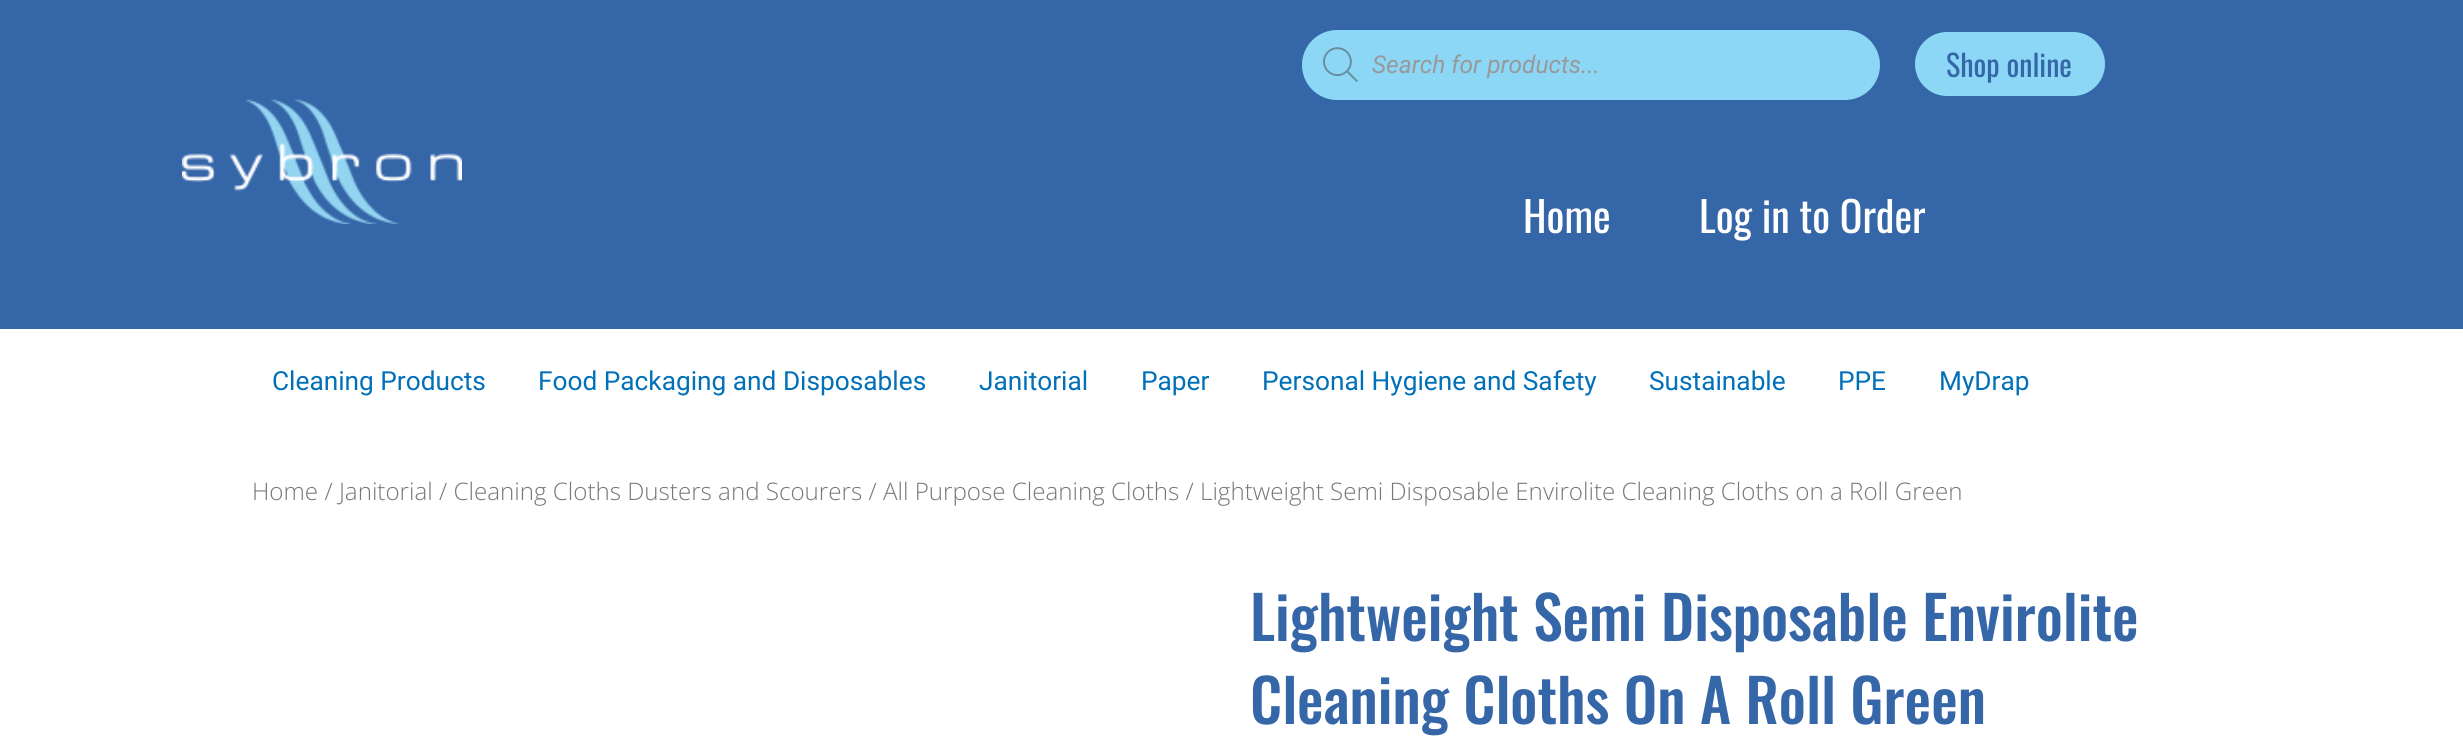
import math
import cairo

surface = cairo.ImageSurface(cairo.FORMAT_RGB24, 2463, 751)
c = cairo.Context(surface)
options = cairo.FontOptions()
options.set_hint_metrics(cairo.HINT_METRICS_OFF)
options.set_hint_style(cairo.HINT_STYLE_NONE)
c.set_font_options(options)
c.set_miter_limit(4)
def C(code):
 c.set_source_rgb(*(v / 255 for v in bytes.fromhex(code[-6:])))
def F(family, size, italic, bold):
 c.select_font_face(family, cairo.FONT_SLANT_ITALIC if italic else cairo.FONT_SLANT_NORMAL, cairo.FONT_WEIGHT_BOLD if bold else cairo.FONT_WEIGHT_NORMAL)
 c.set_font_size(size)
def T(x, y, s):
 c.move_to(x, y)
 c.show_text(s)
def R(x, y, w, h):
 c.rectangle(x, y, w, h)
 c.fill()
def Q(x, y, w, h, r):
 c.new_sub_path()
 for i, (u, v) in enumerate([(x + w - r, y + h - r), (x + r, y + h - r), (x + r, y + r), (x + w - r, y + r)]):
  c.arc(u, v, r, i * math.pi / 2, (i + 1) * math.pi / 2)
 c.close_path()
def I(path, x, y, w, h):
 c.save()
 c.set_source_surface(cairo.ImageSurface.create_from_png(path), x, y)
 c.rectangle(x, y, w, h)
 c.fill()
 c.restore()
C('ffffff')
c.paint()
C('3566a8')
R(0,0,2463,329)
C('8cd7f6')
Q(1302,30,578,70,35)
c.fill()
I('1.png',1323,47,35,35)
F('Roboto',24.5,1,0)
C('999999')
T(1372,73,'Search for products...')
C('8cd7f6')
Q(1916,33,188,62,31)
c.fill_preserve()
c.stroke()
F('Oswald',30,0,0)
C('3566a8')
T(1946,77,'Shop online')
I('2.png',182,99,280,125)
F('Oswald',42,0,0)
C('ffffff')
T(1523,233,'Home')
T(1699,233,'Log in to Order')
F('Roboto',26.25,0,0)
C('0170b9')
T(272,390,'Cleaning Products')
T(538,390,'Food Packaging and Disposables')
T(979,390,'Janitorial')
T(1141,390,'Paper')
T(1262,390,'Personal Hygiene and Safety')
T(1649,390,'Sustainable')
T(1838,390,'PPE')
T(1939,390,'MyDrap')
F('Open Sans Light',24.15,0,0)
C('777777')
T(252,500,'Home / Janitorial / Cleaning Cloths Dusters and Scourers / All Purpose Cleaning Cloths / Lightweight Semi Disposable Envirolite Cleaning Cloths on a Roll Green')
F('Oswald Medium',59.5,0,0)
C('3566a8')
T(1250,641,'Lightweight Semi Disposable Envirolite')
T(1250,724,'Cleaning Cloths On A Roll Green')
surface.write_to_png('o.png')
